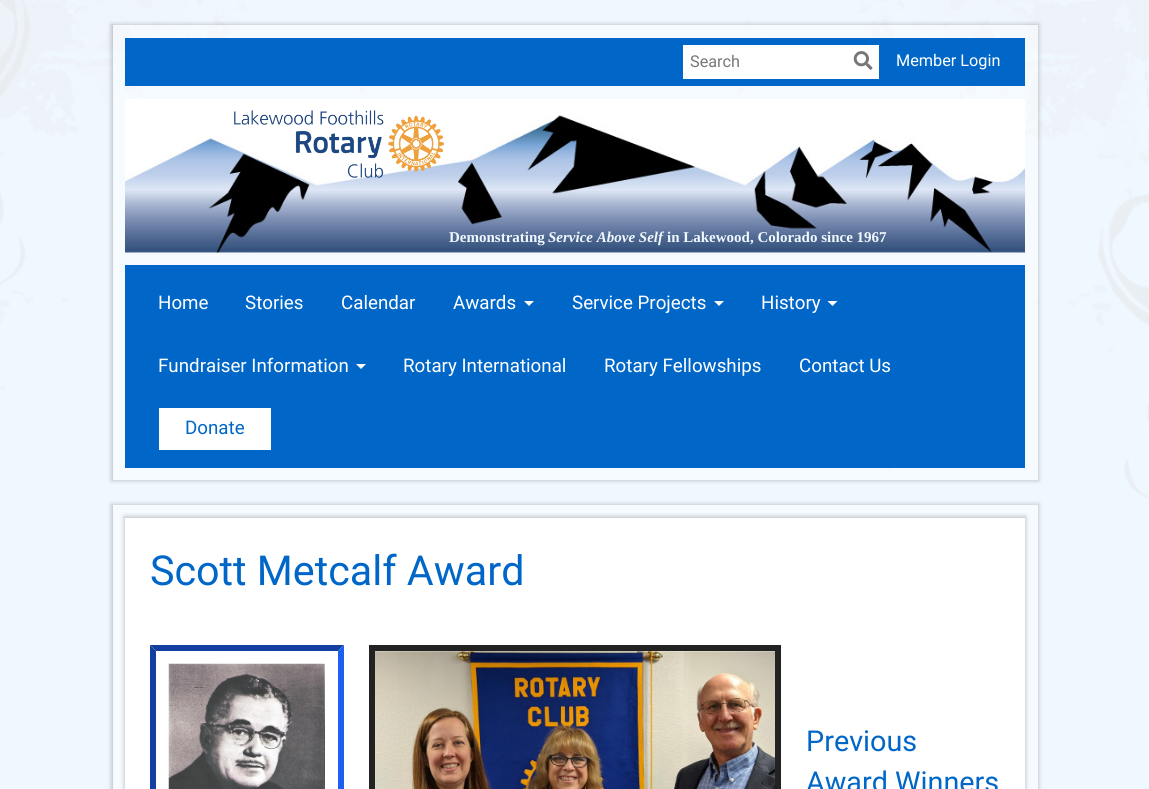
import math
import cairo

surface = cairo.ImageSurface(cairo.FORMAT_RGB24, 1149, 789)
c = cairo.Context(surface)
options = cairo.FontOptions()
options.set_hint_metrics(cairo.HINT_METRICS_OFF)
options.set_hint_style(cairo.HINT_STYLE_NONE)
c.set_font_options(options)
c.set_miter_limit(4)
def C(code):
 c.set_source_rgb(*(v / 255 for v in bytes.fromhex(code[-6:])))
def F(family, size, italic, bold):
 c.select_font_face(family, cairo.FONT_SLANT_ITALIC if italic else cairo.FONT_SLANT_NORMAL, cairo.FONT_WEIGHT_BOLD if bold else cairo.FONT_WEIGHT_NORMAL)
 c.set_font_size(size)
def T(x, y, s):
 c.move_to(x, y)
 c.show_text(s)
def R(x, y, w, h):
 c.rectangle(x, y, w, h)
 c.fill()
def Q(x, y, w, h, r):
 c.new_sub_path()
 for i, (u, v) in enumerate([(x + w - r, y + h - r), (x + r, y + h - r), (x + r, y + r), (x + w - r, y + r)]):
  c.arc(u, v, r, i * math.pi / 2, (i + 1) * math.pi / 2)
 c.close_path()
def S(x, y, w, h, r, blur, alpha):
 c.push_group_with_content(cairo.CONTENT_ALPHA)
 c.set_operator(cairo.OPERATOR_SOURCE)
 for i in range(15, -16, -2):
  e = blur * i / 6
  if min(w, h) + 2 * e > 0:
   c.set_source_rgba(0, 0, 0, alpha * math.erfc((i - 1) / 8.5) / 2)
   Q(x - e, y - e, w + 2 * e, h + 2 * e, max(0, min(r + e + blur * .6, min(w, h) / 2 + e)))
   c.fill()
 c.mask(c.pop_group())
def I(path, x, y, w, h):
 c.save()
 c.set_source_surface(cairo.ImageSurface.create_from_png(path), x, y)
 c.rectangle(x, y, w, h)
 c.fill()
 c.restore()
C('ffffff')
c.paint()
I('1.png',0,0,1149,789)
c.save()
c.set_fill_rule(cairo.FILL_RULE_EVEN_ODD)
c.new_path()
c.move_to(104,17)
c.line_to(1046,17)
c.line_to(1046,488)
c.line_to(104,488)
c.close_path()
c.move_to(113,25)
c.line_to(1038,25)
c.line_to(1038,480)
c.line_to(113,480)
c.close_path()
c.clip()
C('000000')
S(111,24,928,457,0,2,.2)
c.restore()
c.set_source_rgba(1,1,1,0.4)
R(113,25,925,455)
C('0067c8')
R(125,38,900,48)
C('ffffff')
R(683,45,196,34)
F('Roboto',16.25,0,0)
C('777777')
T(690,67,'Search')
I('2.png',853,51,20,19)
C('ffffff')
T(896,66,'Member Login')
I('3.png',125,99,900,154)
I('4.png',234,110,210,68)
F('Liberation Serif',15,0,1)
C('f0f8ff')
T(449,242,'Demonstrating')
F('Liberation Serif',15,1,1)
T(548,242,'Service Above Self')
F('Liberation Serif',15,0,1)
T(667,242,'in Lakewood, Colorado since 1967')
C('0067c8')
R(125,265,900,203)
F('Roboto',18.75,0,0)
C('ffffff')
T(158,309,'Home')
T(245,309,'Stories')
T(341,309,'Calendar')
T(453,309,'Awards')
c.new_path()
c.move_to(524,301)
c.line_to(534,301)
c.line_to(529,306)
c.close_path()
c.fill()
T(572,309,'Service Projects')
c.new_path()
c.move_to(714,301)
c.line_to(724,301)
c.line_to(719,306)
c.close_path()
c.fill()
T(761,309,'History')
c.new_path()
c.move_to(827.5,301)
c.line_to(837.5,301)
c.line_to(832.5,306)
c.close_path()
c.fill()
T(158,372,'Fundraiser Information')
c.new_path()
c.move_to(356,364)
c.line_to(366,364)
c.line_to(361,369)
c.close_path()
c.fill()
T(403,372,'Rotary International')
T(604,372,'Rotary Fellowships')
T(799,372,'Contact Us')
R(159,408,112,42)
C('0067c8')
T(185,434,'Donate')
c.save()
c.set_fill_rule(cairo.FILL_RULE_EVEN_ODD)
c.new_path()
c.move_to(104,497)
c.line_to(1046,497)
c.line_to(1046,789)
c.line_to(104,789)
c.close_path()
c.move_to(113,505)
c.line_to(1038,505)
c.line_to(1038,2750)
c.line_to(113,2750)
c.close_path()
c.clip()
C('000000')
S(111,504,928,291,0,2,.2)
c.restore()
c.set_source_rgba(1,1,1,0.4)
R(113,505,925,284)
C('000000')
S(124,516,902,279,0,2,.2)
C('ffffff')
R(125,518,900,271)
F('Roboto',41.25,0,0)
C('0067c8')
T(150,585,'Scott Metcalf Award')
C('1340a0')
c.new_path()
c.move_to(150,645)
c.line_to(344,645)
c.line_to(338,651)
c.line_to(156,651)
c.close_path()
c.fill()
C('1d60f0')
c.new_path()
c.move_to(344,645)
c.line_to(344,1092)
c.line_to(338,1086)
c.line_to(338,651)
c.close_path()
c.fill()
C('1340a0')
c.new_path()
c.move_to(150,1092)
c.line_to(150,645)
c.line_to(156,651)
c.line_to(156,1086)
c.close_path()
c.fill()
I('5.png',168,663,157,126)
c.rectangle(372,648,406,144)
C('222222')
c.set_line_width(6)
c.stroke()
I('6.png',375,651,400,138)
F('Roboto',28.75,0,0)
C('0067c8')
T(806,751,'Previous')
T(806,792,'Award Winners')
surface.write_to_png('o.png')
